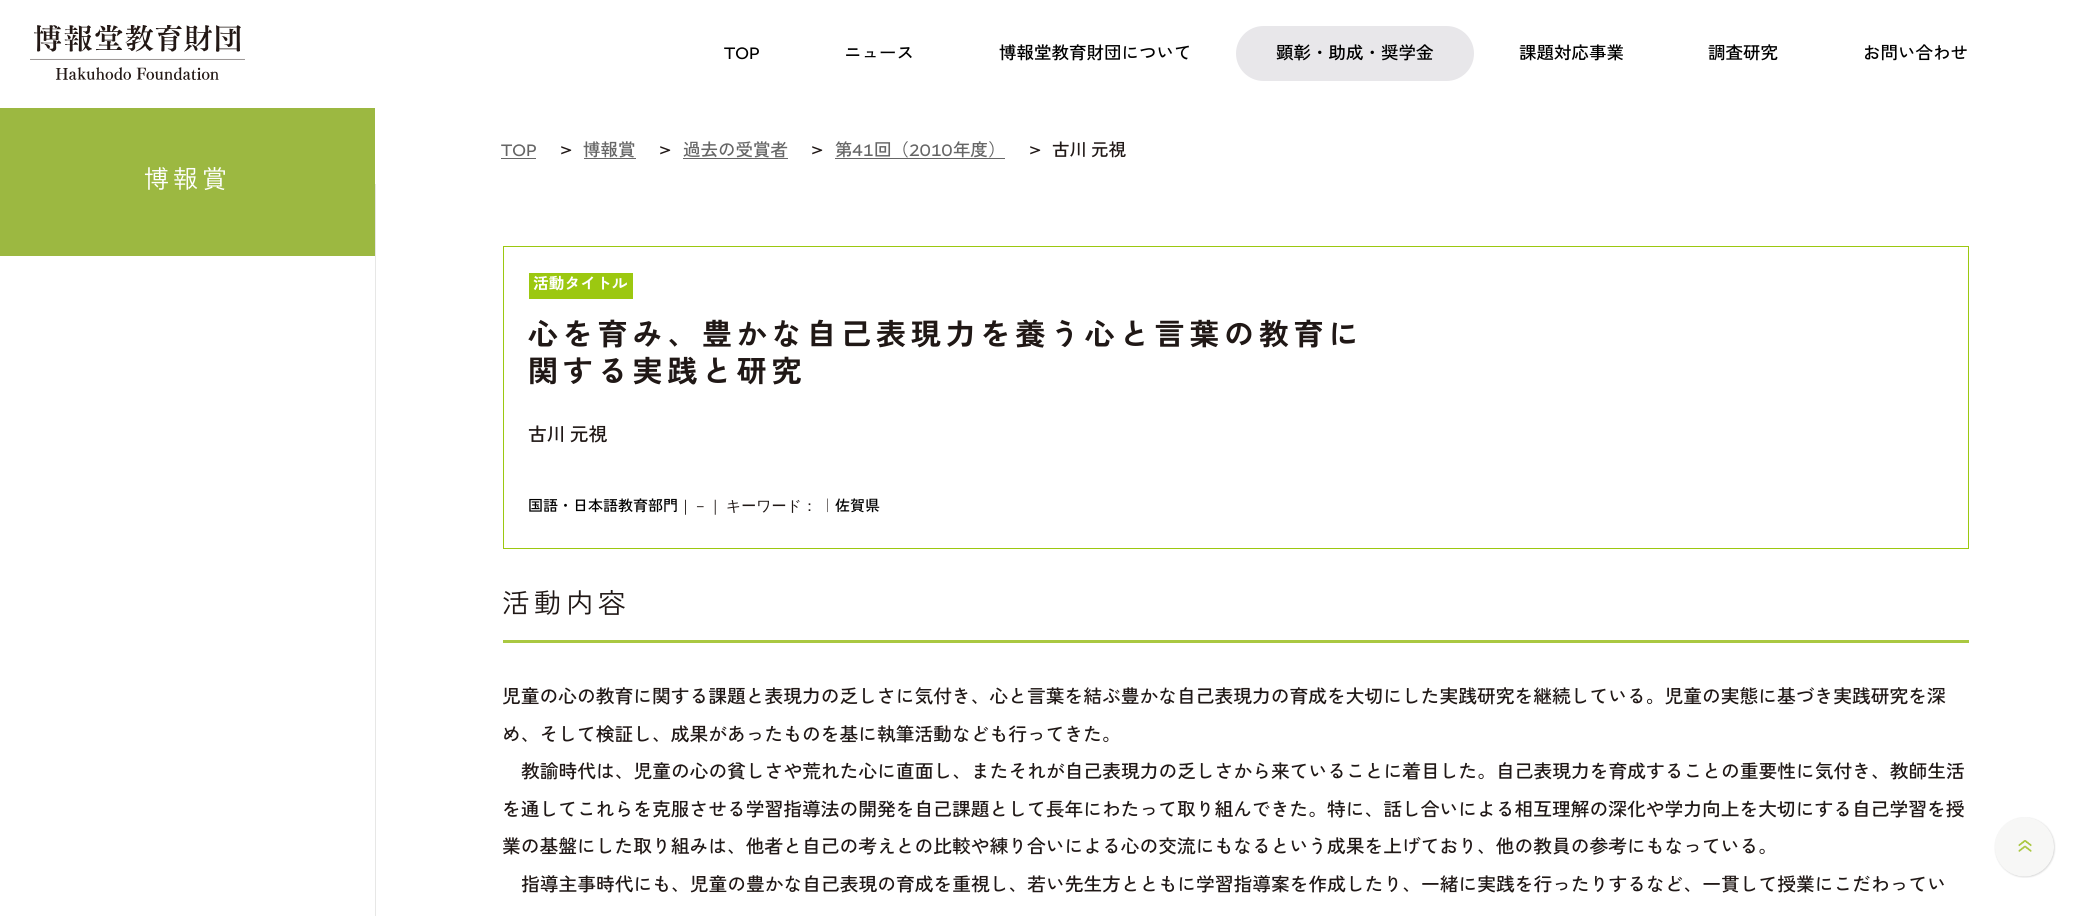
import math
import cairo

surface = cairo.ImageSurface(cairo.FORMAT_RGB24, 2093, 916)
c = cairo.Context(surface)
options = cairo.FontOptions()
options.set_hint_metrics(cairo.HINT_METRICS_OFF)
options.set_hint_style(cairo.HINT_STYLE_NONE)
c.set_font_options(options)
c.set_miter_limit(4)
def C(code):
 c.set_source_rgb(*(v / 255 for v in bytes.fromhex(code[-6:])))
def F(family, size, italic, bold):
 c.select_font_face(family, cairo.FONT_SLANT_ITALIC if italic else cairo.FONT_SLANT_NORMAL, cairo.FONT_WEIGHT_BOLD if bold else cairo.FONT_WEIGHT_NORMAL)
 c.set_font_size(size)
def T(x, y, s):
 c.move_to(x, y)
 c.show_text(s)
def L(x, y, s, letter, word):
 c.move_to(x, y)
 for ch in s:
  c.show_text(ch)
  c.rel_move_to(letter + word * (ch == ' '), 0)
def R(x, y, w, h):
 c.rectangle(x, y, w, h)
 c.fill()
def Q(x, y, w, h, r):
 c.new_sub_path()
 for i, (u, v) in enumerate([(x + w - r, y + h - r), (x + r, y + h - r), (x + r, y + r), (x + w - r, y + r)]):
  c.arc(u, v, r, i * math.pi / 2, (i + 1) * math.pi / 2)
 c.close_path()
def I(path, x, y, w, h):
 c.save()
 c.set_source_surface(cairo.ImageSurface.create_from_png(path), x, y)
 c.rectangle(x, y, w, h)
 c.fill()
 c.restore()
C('ffffff')
c.paint()
I('1.png',30,25,215,55)
F('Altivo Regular',17.5,0,0)
C('000000')
T(724,59,'TOP')
F('Zen Kaku Gothic New Medium',17.5,0,0)
T(844,59,'ニュース')
T(999,59,'博報堂教育財団について')
C('e8e7ea')
Q(1236,26,238,55,27.5)
c.fill()
C('000000')
T(1276,59,'顕彰・助成・奨学金')
T(1519,59,'課題対応事業')
T(1708,59,'調査研究')
T(1863,59,'お問い合わせ')
C('9cb841')
R(0,108,375,148)
F('Zen Kaku Gothic New',25,0,0)
C('ffffff')
L(144,188,'博報賞',4,0)
F('Altivo Regular',17.5,0,0)
C('666666')
T(501,156,'TOP')
R(501,158,35,1)
F('Altivo Regular',20,0,0)
C('201816')
T(560,156,'>')
F('Zen Kaku Gothic New Medium',17.5,0,0)
C('666666')
T(583,156,'博報賞')
R(584,158,52,1)
F('Altivo Regular',20,0,0)
C('201816')
T(659,156,'>')
F('Zen Kaku Gothic New Medium',17.5,0,0)
C('666666')
T(683,156,'過去の受賞者')
R(683,158,105,1)
F('Altivo Regular',20,0,0)
C('201816')
T(811,156,'>')
F('Zen Kaku Gothic New Medium',17.5,0,0)
C('666666')
T(835,156,'第')
F('Altivo Regular',17.5,0,0)
T(852,156,'41')
F('Zen Kaku Gothic New Medium',17.5,0,0)
T(874,156,'回（')
F('Altivo Regular',17.5,0,0)
T(909,156,'2010')
R(835,158,170,1)
F('Zen Kaku Gothic New Medium',17.5,0,0)
T(953,156,'年度）')
F('Altivo Regular',20,0,0)
C('201816')
T(1029,156,'>')
F('Zen Kaku Gothic New Medium',17.5,0,0)
L(1052,156,'古川 元視',0,-1)
C('e7e7e6')
R(375,184,1,732)
c.rectangle(503.5,246.5,1465,302)
C('9cc810')
c.set_line_width(1)
c.stroke()
R(529,273,104,26)
F('Zen Kaku Gothic New',15.75,0,1)
C('ffffff')
T(533,289,'活動タイトル')
F('Zen Kaku Gothic New',30,0,1)
C('201816')
L(528,345,'心を育み、豊かな自己表現力を養う心と言葉の教育に',4.8,0)
L(528,382,'関する実践と研究',4.8,0)
F('Zen Kaku Gothic New Medium',18.75,0,0)
L(528,441,'古川 元視',0,-1)
F('Zen Kaku Gothic New Medium',15,0,0)
C('000000')
T(528,511,'国語・日本語教育部門')
F('WenQuanYi Zen Hei Medium',15,0,0)
C('201816')
L(678,511,'｜－｜ キーワード：',0,-1)
F('Zen Kaku Gothic New',15,0,0)
T(820,511,'｜')
F('Zen Kaku Gothic New Medium',15,0,0)
C('000000')
T(835,511,'佐賀県')
C('aac841')
R(503,640,1466,3)
F('Zen Kaku Gothic New',27.5,0,0)
C('201816')
L(502,613,'活動内容',4.5,0)
F('Zen Kaku Gothic New Medium',18.75,0,0)
T(502,703,'児童の心の教育に関する課題と表現力の乏しさに気付き、心と言葉を結ぶ豊かな自己表現力の育成を大切にした実践研究を継続している。児童の実態に基づき実践研究を深')
T(502,741,'め、そして検証し、成果があったものを基に執筆活動なども行ってきた。')
T(521,778,'教諭時代は、児童の心の貧しさや荒れた心に直面し、またそれが自己表現力の乏しさから来ていることに着目した。自己表現力を育成することの重要性に気付き、教師生活')
T(502,816,'を通してこれらを克服させる学習指導法の開発を自己課題として長年にわたって取り組んできた。特に、話し合いによる相互理解の深化や学力向上を大切にする自己学習を授')
T(502,853,'業の基盤にした取り組みは、他者と自己の考えとの比較や練り合いによる心の交流にもなるという成果を上げており、他の教員の参考にもなっている。')
T(521,891,'指導主事時代にも、児童の豊かな自己表現の育成を重視し、若い先生方とともに学習指導案を作成したり、一緒に実践を行ったりするなど、一貫して授業にこだわってい')
I('2.png',1994,817,62,61)
surface.write_to_png('o.png')
